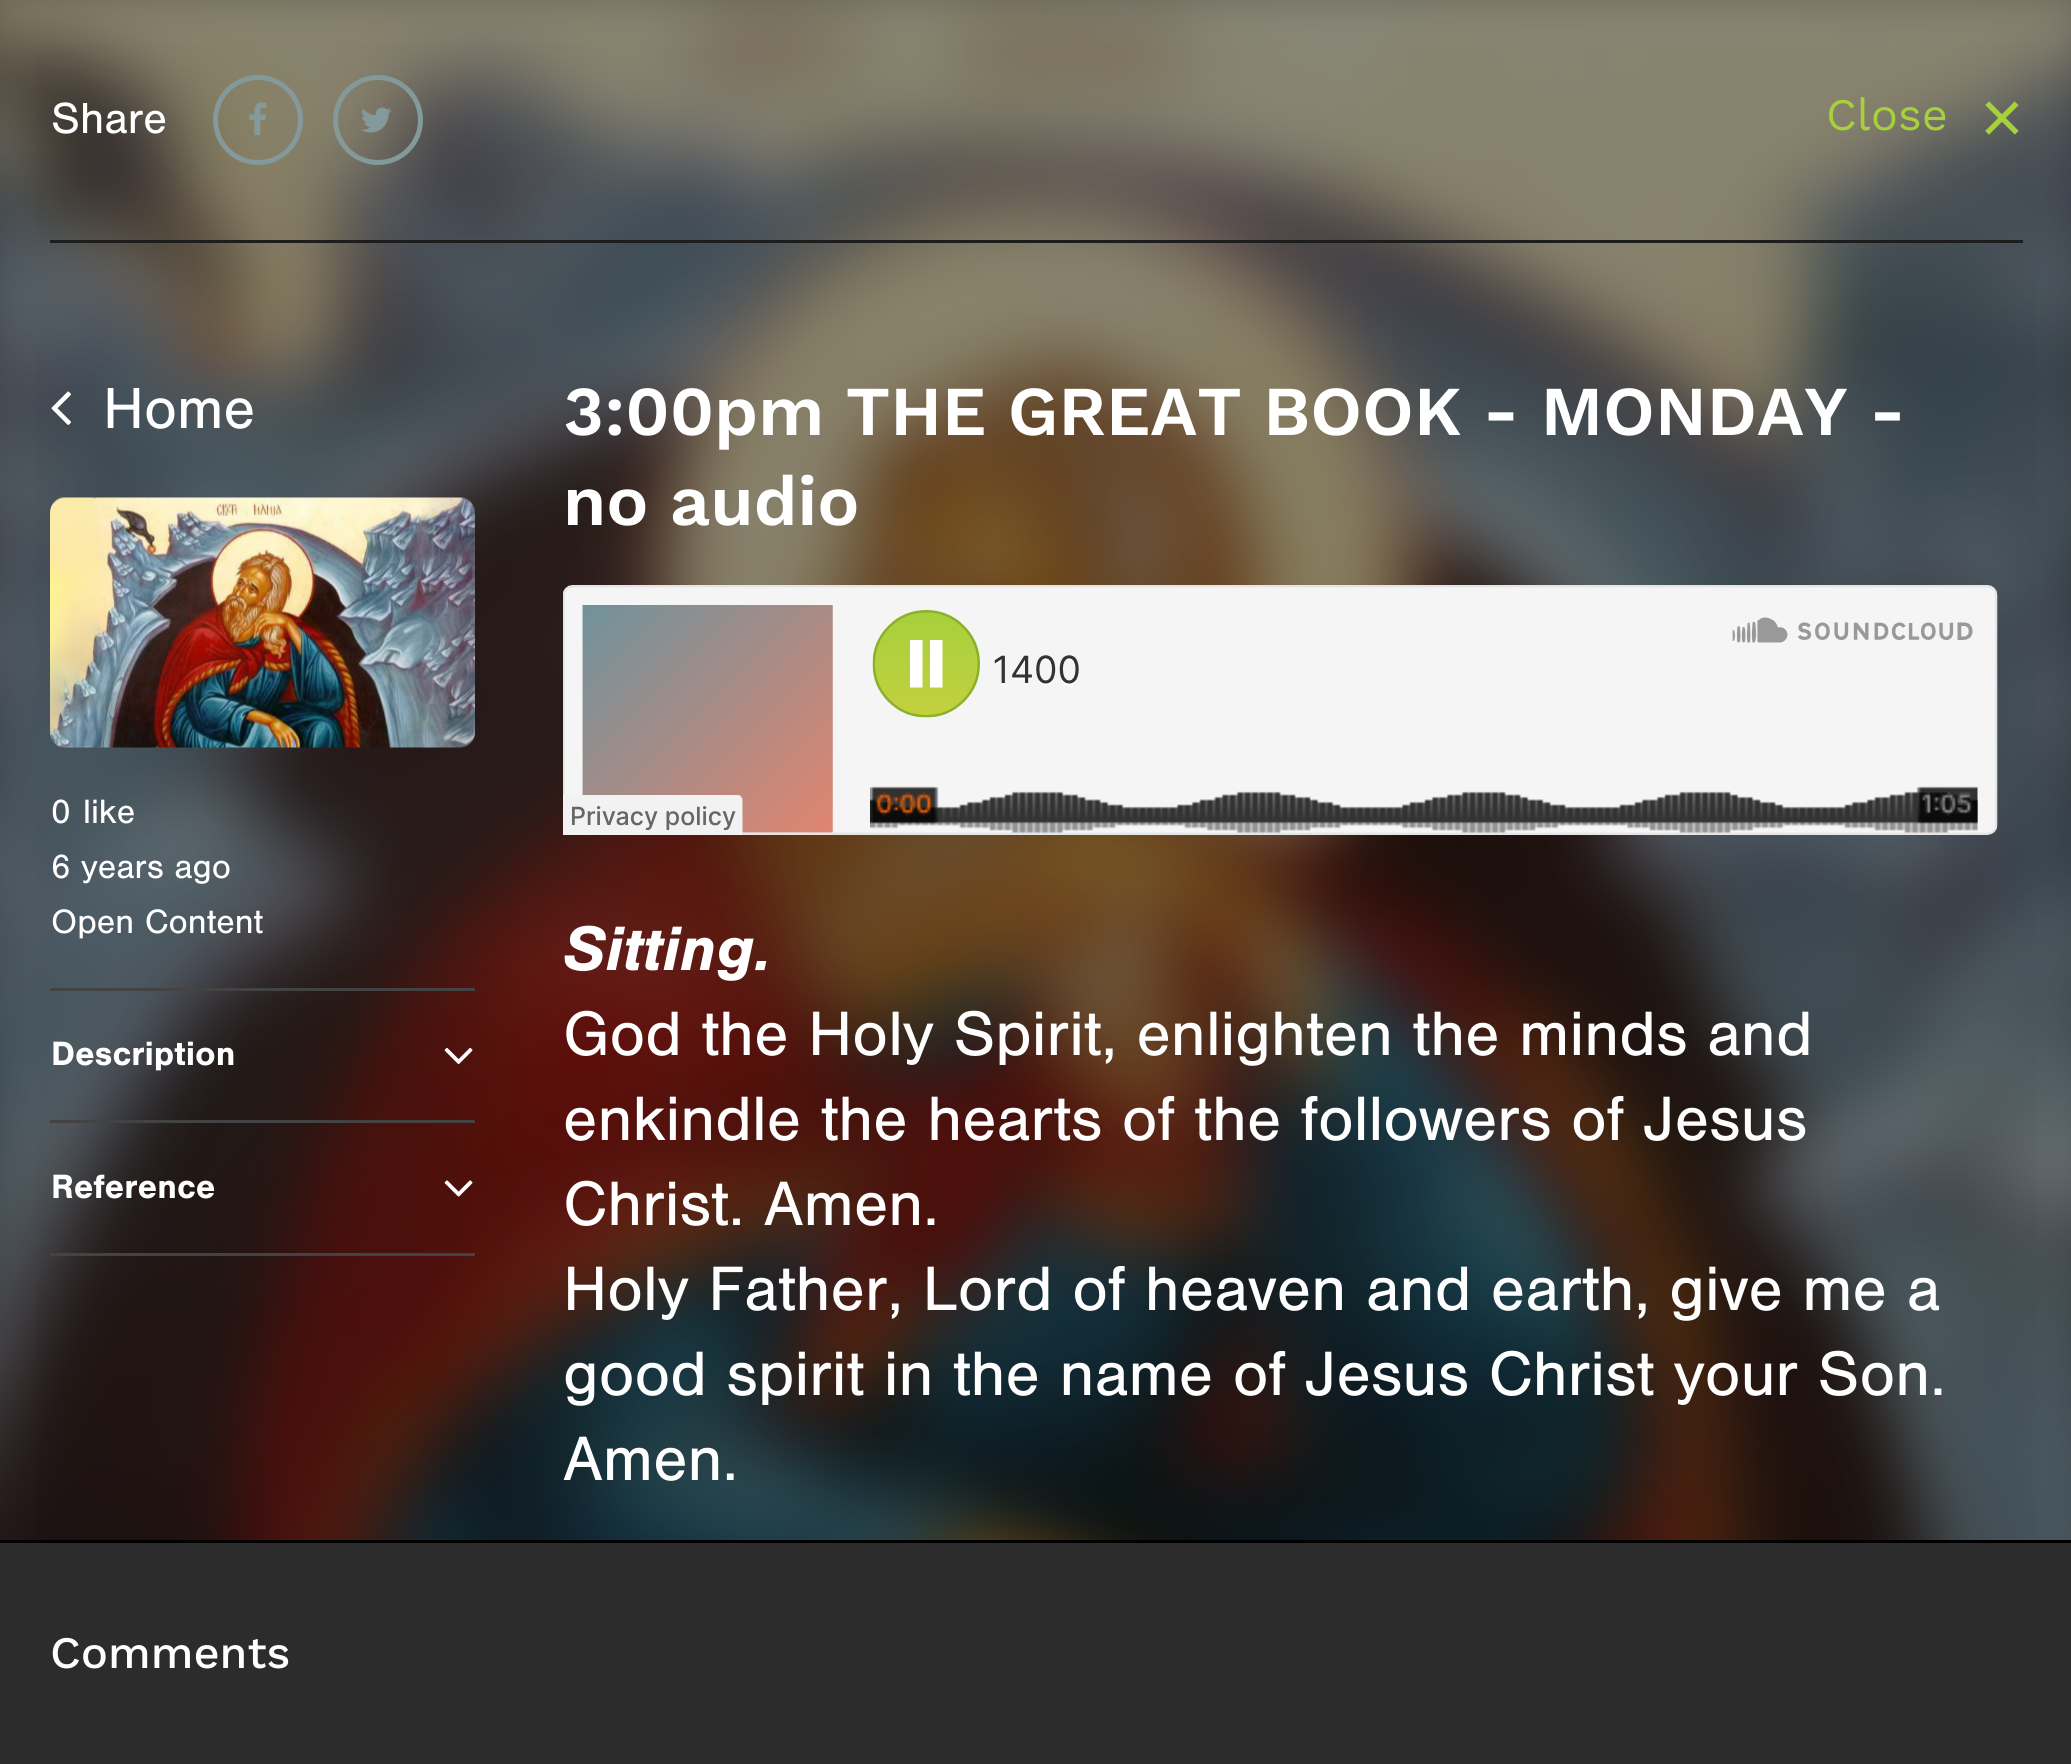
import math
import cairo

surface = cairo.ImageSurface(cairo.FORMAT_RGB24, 2071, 1764)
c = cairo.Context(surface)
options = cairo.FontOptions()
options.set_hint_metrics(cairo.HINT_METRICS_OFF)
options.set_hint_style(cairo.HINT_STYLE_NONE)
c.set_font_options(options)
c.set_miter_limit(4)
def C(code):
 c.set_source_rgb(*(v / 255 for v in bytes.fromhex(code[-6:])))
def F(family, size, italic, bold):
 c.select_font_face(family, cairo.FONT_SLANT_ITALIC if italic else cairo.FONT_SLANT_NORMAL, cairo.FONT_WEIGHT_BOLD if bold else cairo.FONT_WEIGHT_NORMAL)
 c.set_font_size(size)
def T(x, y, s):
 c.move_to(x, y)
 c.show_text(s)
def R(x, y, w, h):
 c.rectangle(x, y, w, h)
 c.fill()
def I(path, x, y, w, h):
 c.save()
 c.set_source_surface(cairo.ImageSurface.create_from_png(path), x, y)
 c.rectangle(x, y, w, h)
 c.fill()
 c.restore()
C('111111')
c.paint()
I('1.png',0,0,2071,1540)
C('1d1d1d')
R(50,240,1973,3)
F('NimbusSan',45,0,0)
C('ffffff')
T(51,133,'Share')
c.new_path()
c.arc(258,120,42.5,0,2 * math.pi)
C('83999a')
c.set_line_width(5)
c.stroke()
I('2.png',249,102,18,33)
c.arc(378,120,42.5,0,2 * math.pi)
c.stroke()
I('3.png',361,107,31,26)
F('Work Sans',45,0,0)
C('a6d03c')
T(1826,130,'Close')
F('Liberation Sans',75,0,0)
T(1980,143,'×')
I('4.png',51,391,20,34)
F('NimbusSan',60,0,0)
C('ffffff')
T(103,428,'Home')
I('5.png',50,497,425,251)
F('NimbusSan',35,0,0)
T(51,823,'0')
T(83,823,'like')
T(51,878,'6 years ago')
T(51,933,'Open Content')
C('434343')
R(50,988,425,3)
R(50,1120,425,3)
F('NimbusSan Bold',35,0,1)
C('ffffff')
T(51,1065,'Description')
I('6.png',444,1047,29,18)
C('434343')
R(50,1253,425,3)
C('ffffff')
T(51,1198,'Reference')
I('7.png',444,1180,29,17)
F('Work Sans SemiBold',70,0,0)
T(563,435,'3:00pm THE GREAT BOOK - MONDAY -')
T(563,525,'no audio')
I('8.png',563,585,1435,250)
F('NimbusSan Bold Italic',65,1,1)
T(563,970,'Sitting.')
F('NimbusSan',65,0,0)
T(563,1055,'God the Holy Spirit, enlighten the minds and')
T(563,1140,'enkindle the hearts of the followers of Jesus')
T(563,1225,'Christ. Amen.')
T(563,1310,'Holy Father, Lord of heaven and earth, give me a')
T(563,1395,'good spirit in the name of Jesus Christ your Son.')
T(563,1480,'Amen.')
C('2c2c2c')
R(0,1543,2071,221)
C('000000')
R(0,1540,2071,3)
F('Work Sans Medium',45,0,0)
C('ffffff')
T(50,1668,'Comments')
surface.write_to_png('o.png')
